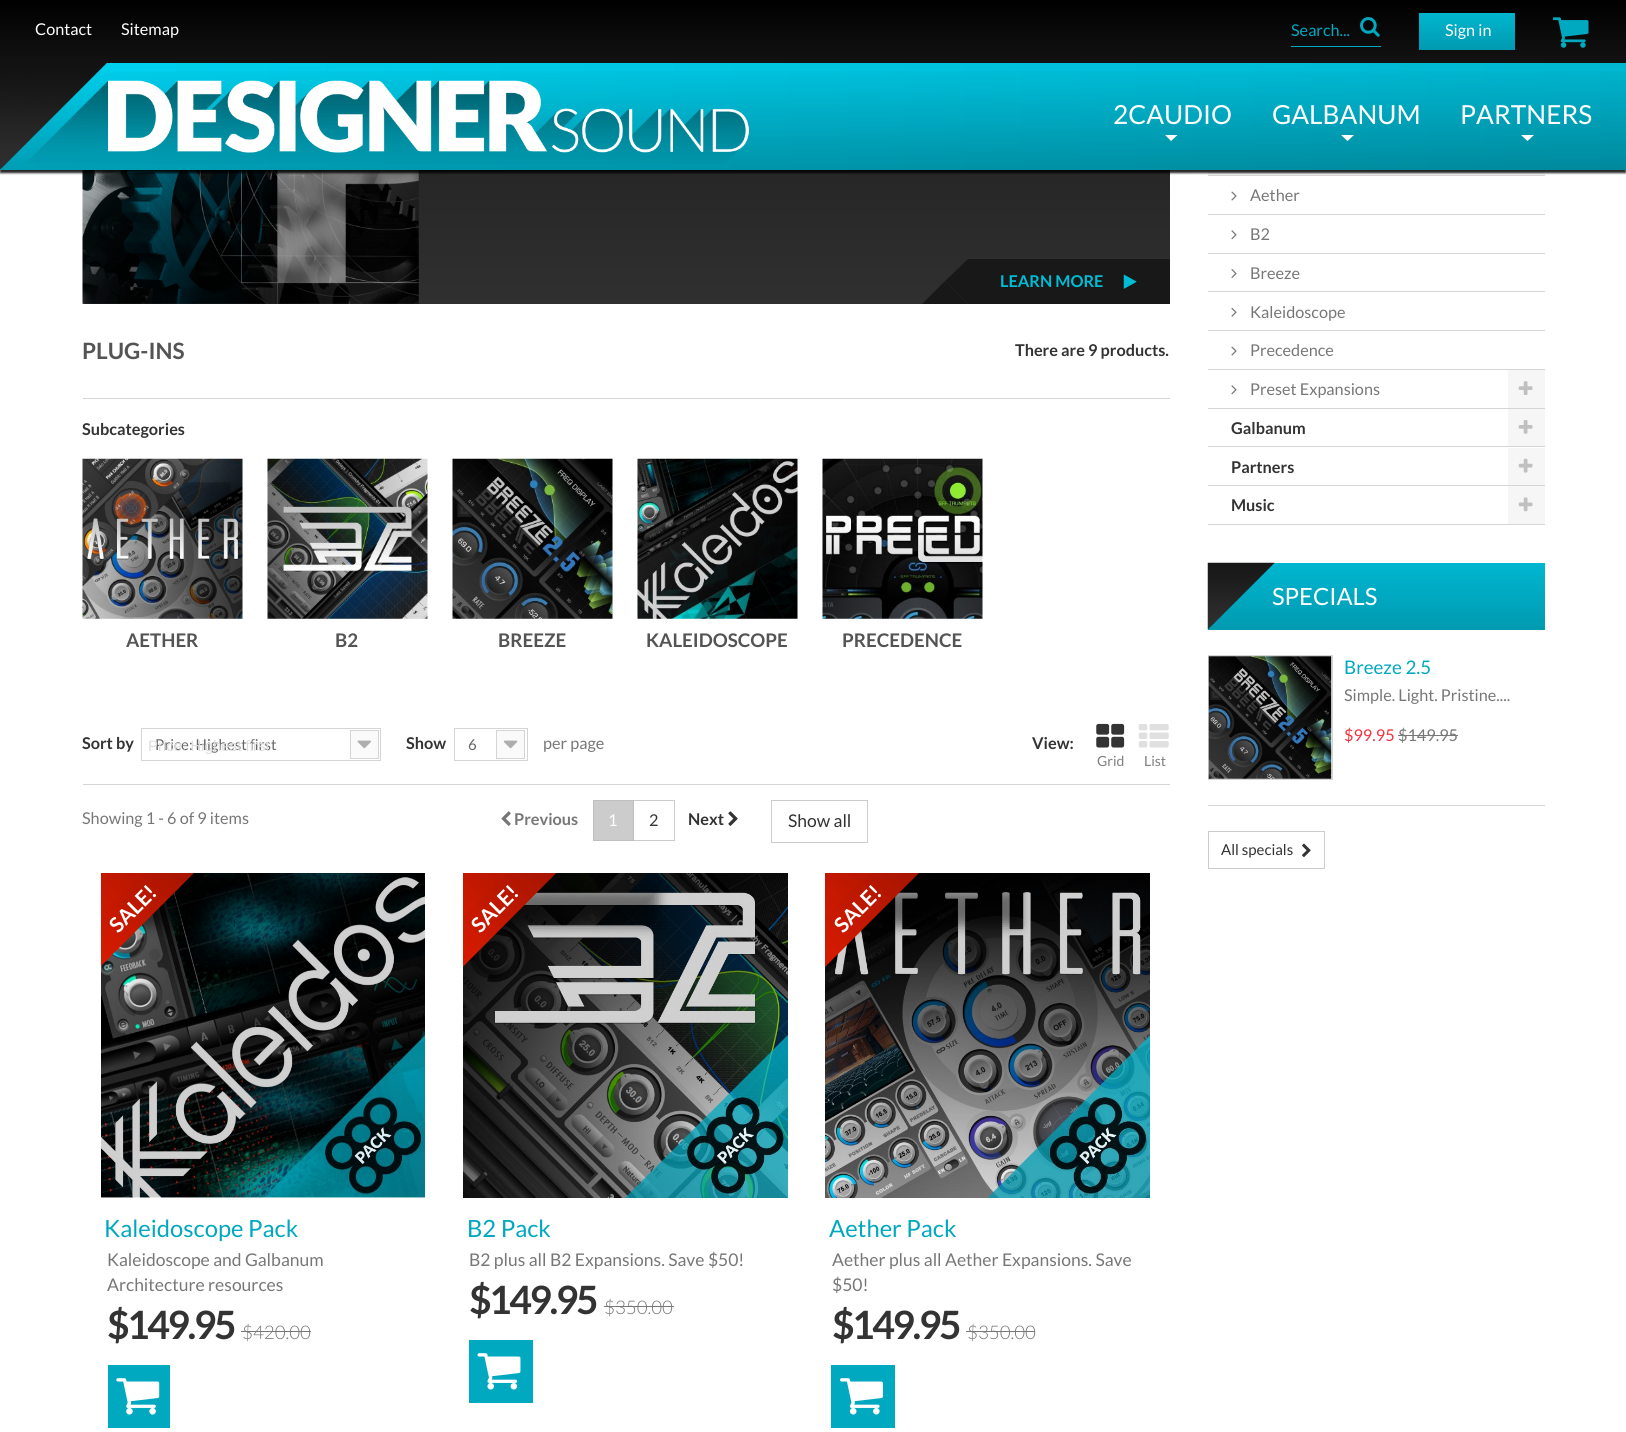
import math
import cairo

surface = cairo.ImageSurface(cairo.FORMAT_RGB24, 1626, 1432)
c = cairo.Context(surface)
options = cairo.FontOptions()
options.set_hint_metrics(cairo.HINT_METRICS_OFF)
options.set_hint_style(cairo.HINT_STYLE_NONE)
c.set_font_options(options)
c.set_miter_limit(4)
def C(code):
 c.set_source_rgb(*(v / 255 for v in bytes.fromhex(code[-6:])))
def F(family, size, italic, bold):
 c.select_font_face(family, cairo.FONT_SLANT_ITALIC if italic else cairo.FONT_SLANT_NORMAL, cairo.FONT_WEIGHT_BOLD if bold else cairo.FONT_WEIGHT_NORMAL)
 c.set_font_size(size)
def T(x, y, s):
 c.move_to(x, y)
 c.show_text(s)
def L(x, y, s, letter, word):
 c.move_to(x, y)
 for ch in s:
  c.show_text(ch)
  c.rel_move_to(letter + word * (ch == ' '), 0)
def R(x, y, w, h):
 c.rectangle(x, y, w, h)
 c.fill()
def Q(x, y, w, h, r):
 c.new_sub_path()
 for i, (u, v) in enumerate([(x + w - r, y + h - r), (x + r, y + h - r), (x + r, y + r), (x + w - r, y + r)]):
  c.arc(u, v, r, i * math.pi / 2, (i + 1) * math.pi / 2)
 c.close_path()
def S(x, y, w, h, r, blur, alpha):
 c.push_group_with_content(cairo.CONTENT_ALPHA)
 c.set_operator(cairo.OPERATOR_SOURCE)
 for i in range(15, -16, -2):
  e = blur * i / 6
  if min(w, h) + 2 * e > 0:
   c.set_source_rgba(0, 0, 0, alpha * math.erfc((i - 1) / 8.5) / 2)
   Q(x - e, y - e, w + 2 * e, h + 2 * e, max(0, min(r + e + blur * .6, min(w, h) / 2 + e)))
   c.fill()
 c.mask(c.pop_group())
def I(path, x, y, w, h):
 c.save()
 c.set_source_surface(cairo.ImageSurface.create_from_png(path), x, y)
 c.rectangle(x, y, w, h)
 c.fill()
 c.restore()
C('ffffff')
c.paint()
gradient = cairo.LinearGradient(813,0,813,63)
gradient.add_color_stop_rgba(0,0,0,0,1)
gradient.add_color_stop_rgba(1,0.071,0.071,0.071,1)
c.set_source(gradient)
R(0,0,1626,63)
F('Lato',16.25,0,0)
C('ffffff')
T(35,35,'Contact')
T(121,35,'Sitemap')
C('00a8c0')
R(1291,46,90,1)
T(1291,36,'Search...')
I('1.png',1360,17,20,20)
gradient = cairo.LinearGradient(1467,12,1467,50)
gradient.add_color_stop_rgba(0,0,0.714,0.816,1)
gradient.add_color_stop_rgba(1,0,0.604,0.69,1)
c.set_source(gradient)
R(1419,13,96,37)
C('ffffff')
T(1445,36,'Sign in')
I('2.png',1553,17,36,31)
gradient = cairo.LinearGradient(0,116,1626,116)
gradient.add_color_stop_rgba(0,0,0.824,0.941,1)
gradient.add_color_stop_rgba(1,0,0.714,0.816,1)
c.set_source(gradient)
R(0,63,1626,107)
gradient = cairo.LinearGradient(813,62,813,170)
gradient.add_color_stop_rgba(0,0,0,0,0)
gradient.add_color_stop_rgba(1,0,0,0,.25)
c.set_source(gradient)
R(0,71,1626,99)
gradient = cairo.LinearGradient(626,-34,626,304)
gradient.add_color_stop_rgba(0,0.094,0.094,0.094,1)
gradient.add_color_stop_rgba(1,0.188,0.188,0.188,1)
c.set_source(gradient)
R(83,170,1087,134)
I('5.png',82,170,337,134)
C('f6f6f6')
R(1208,170,337,5)
C('d6d4d4')
R(1208,175,337,1)
c.save()
c.rectangle(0,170,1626,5)
c.clip()
C('000000')
S(0,65,1626,108,0,1,.85)
c.restore()
I('3.png',0,63,107,107)
I('4.png',26,80,723,84)
F('Lato',26.25,0,0)
C('ffffff')
T(1113,124,'2CAUDIO')
c.new_path()
c.move_to(1165,135)
c.line_to(1177.5,135)
c.line_to(1171,141)
c.close_path()
c.fill()
T(1272,124,'GALBANUM')
c.new_path()
c.move_to(1341,135)
c.line_to(1354,135)
c.line_to(1347.5,141)
c.close_path()
c.fill()
T(1460,124,'PARTNERS')
c.new_path()
c.move_to(1521,135)
c.line_to(1534,135)
c.line_to(1527.5,141)
c.close_path()
c.fill()
C('181818')
R(968,259,202,45)
c.new_path()
c.move_to(968,259)
c.line_to(968,304)
c.line_to(945,281)
c.close_path()
c.fill()
c.new_path()
c.move_to(968,304)
c.line_to(922,304)
c.line_to(945,281)
c.close_path()
c.fill()
F('Lato',16.25,0,1)
C('00bcd4')
T(1000,287,'LEARN MORE')
I('6.png',1123,274,14,15)
F('Lato',22.5,0,1)
C('555454')
T(82,359,'PLUG-INS')
F('Lato',16.25,0,1)
C('333333')
T(1015,356,'There are 9 products.')
C('d6d4d4')
R(83,398,1087,1)
C('333333')
T(82,435,'Subcategories')
I('7.png',82,458,161,161)
F('Lato',18.75,0,1)
C('555454')
T(126,647,'AETHER')
I('8.png',267,458,161,161)
T(335,647,'B2')
I('9.png',452,458,161,161)
T(498,647,'BREEZE')
I('10.png',637,458,161,161)
T(646,647,'KALEIDOSCOPE')
I('11.png',822,458,161,161)
T(842,647,'PRECEDENCE')
C('d6d4d4')
R(83,784,1087,1)
F('Lato',16.25,0,1)
C('333333')
T(82,749,'Sort by')
c.rectangle(141.5,728.5,239,32)
C('d6d4d4')
c.set_line_width(1)
c.stroke()
F('Lato',15,0,0)
C('666666')
T(155,750,'Price: Highest first')
C('fafafa')
c.rectangle(350.5,730.5,28,28)
c.fill_preserve()
C('d6d4d4')
c.stroke()
I('12.png',357,740,14,9)
F('Liberation Sans',15,0,0)
C('dedede')
T(148,751,'Price: Highest first')
F('Lato',16.25,0,1)
C('333333')
T(406,749,'Show')
c.rectangle(454.5,728.5,73,32)
C('d6d4d4')
c.stroke()
F('Lato',15,0,0)
C('666666')
T(468,750,'6')
C('fafafa')
c.rectangle(496.5,730.5,28,28)
c.fill_preserve()
C('d6d4d4')
c.stroke()
I('13.png',503,740,15,9)
F('Lato',16.25,0,0)
C('777777')
T(543,749,'per page')
F('Lato',16.25,0,1)
C('333333')
T(1032,749,'View:')
I('14.png',1096,723,29,25)
F('Lato',14,0,0)
C('808080')
T(1097,766,'Grid')
I('15.png',1138,724,31,24)
T(1144,766,'List')
F('Lato',16.25,0,0)
C('777777')
T(82,824,'Showing 1 - 6 of 9 items')
I('16.png',501,811,10,15)
F('Lato',16.25,0,1)
T(514,825,'Previous')
c.rectangle(633.5,800.5,41,40)
C('cccccc')
c.stroke()
c.rectangle(593.5,800.5,40,40)
c.fill_preserve()
C('bfbfbf')
c.stroke()
F('Lato',16.25,0,0)
C('ffffff')
T(608,826,'1')
C('333333')
T(649,826,'2')
F('Lato',16.25,0,1)
T(688,825,'Next')
I('17.png',728,811,10,15)
c.rectangle(771.5,800.5,96,42)
C('cccccc')
c.stroke()
F('Lato',17.5,0,0)
C('333333')
T(788,827,'Show all')
I('18.png',101,873,324,325)
c.save()
c.rectangle(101,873,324,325)
c.clip()
C('000000')
S(-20,890,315,36,0,6.5,.5)
c.restore()
c.save()
c.rectangle(101,873,324,325)
c.clip()
gradient = cairo.LinearGradient(18,1023,248,794)
gradient.add_color_stop_rgba(.25,0.878,0.11,0,1)
gradient.add_color_stop_rgba(.75,0.627,0.078,0,1)
c.set_source(gradient)
c.new_path()
c.move_to(5,1011)
c.line_to(235,781)
c.line_to(261,806)
c.line_to(31,1036)
c.close_path()
c.fill()
c.restore()
F('Lato',21,0,1)
C('ffffff')
c.save()
c.translate(118,934)
c.rotate(-45 * math.pi / 180)
T(0,0,'SALE!')
c.restore()
c.save()
c.rectangle(101,873,324,325)
c.clip()
gradient = cairo.LinearGradient(-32,961,198,731)
gradient.add_color_stop_rgba(.25,0.878,0.11,0,1)
gradient.add_color_stop_rgba(.75,0.627,0.078,0,1)
c.set_source(gradient)
c.new_path()
c.move_to(-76,917)
c.line_to(154,687)
c.line_to(242,775)
c.line_to(12,1005)
c.close_path()
c.fill()
c.restore()
F('Lato',23.75,0,0)
C('00a8c0')
T(104,1237,'Kaleidoscope Pack')
F('Lato',17.5,0,0)
C('777777')
T(107,1266,'Kaleidoscope and Galbanum')
T(107,1291,'Architecture resources')
F('Lato',39,0,1)
C('333333')
L(107,1339,'$149.95',-2.5,0)
F('Lato Light',18.75,0,0)
C('777777')
T(242,1339,'$420.00')
R(241,1331,70,1)
C('00a8c0')
R(108,1365,62,63)
I('19.png',116,1378,44,37)
I('20.png',463,873,325,325)
c.save()
c.rectangle(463,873,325,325)
c.clip()
C('000000')
S(333,890,325,36,0,6.5,.5)
c.restore()
c.save()
c.rectangle(463,873,325,325)
c.clip()
gradient = cairo.LinearGradient(381,1023,611,794)
gradient.add_color_stop_rgba(.25,0.878,0.11,0,1)
gradient.add_color_stop_rgba(.75,0.627,0.078,0,1)
c.set_source(gradient)
c.new_path()
c.move_to(368,1011)
c.line_to(598,781)
c.line_to(623,806)
c.line_to(394,1036)
c.close_path()
c.fill()
c.restore()
F('Lato',21,0,1)
C('ffffff')
c.save()
c.translate(480,934)
c.rotate(-45 * math.pi / 180)
T(0,0,'SALE!')
c.restore()
c.save()
c.rectangle(463,873,325,325)
c.clip()
gradient = cairo.LinearGradient(331,961,561,731)
gradient.add_color_stop_rgba(.25,0.878,0.11,0,1)
gradient.add_color_stop_rgba(.75,0.627,0.078,0,1)
c.set_source(gradient)
c.new_path()
c.move_to(287,917)
c.line_to(516,687)
c.line_to(605,775)
c.line_to(375,1005)
c.close_path()
c.fill()
c.restore()
F('Lato',23.75,0,0)
C('00a8c0')
T(467,1237,'B2 Pack')
F('Lato',17.5,0,0)
C('777777')
T(469,1266,'B2 plus all B2 Expansions. Save $50!')
F('Lato',39,0,1)
C('333333')
L(469,1314,'$149.95',-2.5,0)
F('Lato Light',18.75,0,0)
C('777777')
T(604,1314,'$350.00')
R(604,1306,70,1)
C('00a8c0')
R(469,1340,64,63)
I('21.png',477,1353,44,37)
I('22.png',825,873,325,325)
c.save()
c.rectangle(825,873,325,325)
c.clip()
C('000000')
S(695,890,325,36,0,6.5,.5)
c.restore()
c.save()
c.rectangle(825,873,325,325)
c.clip()
gradient = cairo.LinearGradient(743,1023,973,794)
gradient.add_color_stop_rgba(.25,0.878,0.11,0,1)
gradient.add_color_stop_rgba(.75,0.627,0.078,0,1)
c.set_source(gradient)
c.new_path()
c.move_to(730,1011)
c.line_to(960,781)
c.line_to(986,806)
c.line_to(756,1036)
c.close_path()
c.fill()
c.restore()
F('Lato',21,0,1)
C('ffffff')
c.save()
c.translate(843,934)
c.rotate(-45 * math.pi / 180)
T(0,0,'SALE!')
c.restore()
c.save()
c.rectangle(825,873,325,325)
c.clip()
gradient = cairo.LinearGradient(693,961,923,731)
gradient.add_color_stop_rgba(.25,0.878,0.11,0,1)
gradient.add_color_stop_rgba(.75,0.627,0.078,0,1)
c.set_source(gradient)
c.new_path()
c.move_to(649,917)
c.line_to(879,687)
c.line_to(967,775)
c.line_to(737,1005)
c.close_path()
c.fill()
c.restore()
F('Lato',23.75,0,0)
C('00a8c0')
T(829,1237,'Aether Pack')
F('Lato',17.5,0,0)
C('777777')
T(832,1266,'Aether plus all Aether Expansions. Save')
T(832,1291,'$50!')
F('Lato',39,0,1)
C('333333')
L(832,1339,'$149.95',-2.5,0)
F('Lato Light',18.75,0,0)
C('777777')
T(967,1339,'$350.00')
R(966,1331,69,1)
C('00a8c0')
R(831,1365,64,63)
I('23.png',840,1378,43,37)
C('d6d4d4')
R(1208,214,337,1)
I('24.png',1231,191,6,10)
F('Lato',16.25,0,0)
C('777777')
T(1250,201,'Aether')
C('d6d4d4')
R(1208,253,337,1)
I('25.png',1231,230,6,10)
C('777777')
T(1250,240,'B2')
C('d6d4d4')
R(1208,291,337,1)
I('26.png',1231,269,6,9)
C('777777')
T(1250,279,'Breeze')
C('d6d4d4')
R(1208,330,337,1)
I('27.png',1231,307,6,10)
C('777777')
T(1250,318,'Kaleidoscope')
C('d6d4d4')
R(1208,369,337,1)
I('24.png',1231,346,6,10)
C('777777')
T(1250,356,'Precedence')
C('d6d4d4')
R(1208,408,337,1)
I('25.png',1231,385,6,10)
C('777777')
T(1250,395,'Preset Expansions')
C('f6f6f6')
R(1508,370,37,38)
I('28.png',1518,381,15,14)
C('d6d4d4')
R(1208,446,337,1)
F('Lato',16.25,0,1)
C('333333')
T(1231,434,'Galbanum')
C('f6f6f6')
R(1508,409,37,37)
I('29.png',1518,420,15,14)
C('d6d4d4')
R(1208,485,337,1)
C('333333')
T(1231,473,'Partners')
C('f6f6f6')
R(1508,448,37,37)
I('30.png',1518,458,15,15)
C('d6d4d4')
R(1208,524,337,1)
C('333333')
T(1231,511,'Music')
C('f6f6f6')
R(1508,486,37,38)
I('31.png',1518,497,15,15)
gradient = cairo.LinearGradient(1376,563,1376,630)
gradient.add_color_stop_rgba(.01,0,0.714,0.816,1)
gradient.add_color_stop_rgba(1,0,0.604,0.69,1)
c.set_source(gradient)
R(1208,563,337,67)
F('Lato',23.75,0,0)
C('ffffff')
T(1272,605,'SPECIALS')
I('32.png',1207,562,68,68)
C('d6d4d4')
R(1208,805,337,1)
c.rectangle(1208.5,655.5,124,124)
c.stroke()
I('33.png',1208,656,124,123)
F('Lato',18.75,0,0)
C('00a8c0')
T(1344,674,'Breeze 2.5')
F('Lato',16.25,0,0)
C('777777')
T(1344,701,'Simple. Light. Pristine....')
C('f13340')
T(1344,741,'$99.95')
C('777777')
T(1398,741,'$149.95')
R(1398,735,60,1)
c.rectangle(1208.5,831.5,116,37)
C('cccccc')
c.stroke()
F('Lato',15,0,0)
C('333333')
T(1221,855,'All specials')
I('34.png',1302,843,9,14)
surface.write_to_png('o.png')
